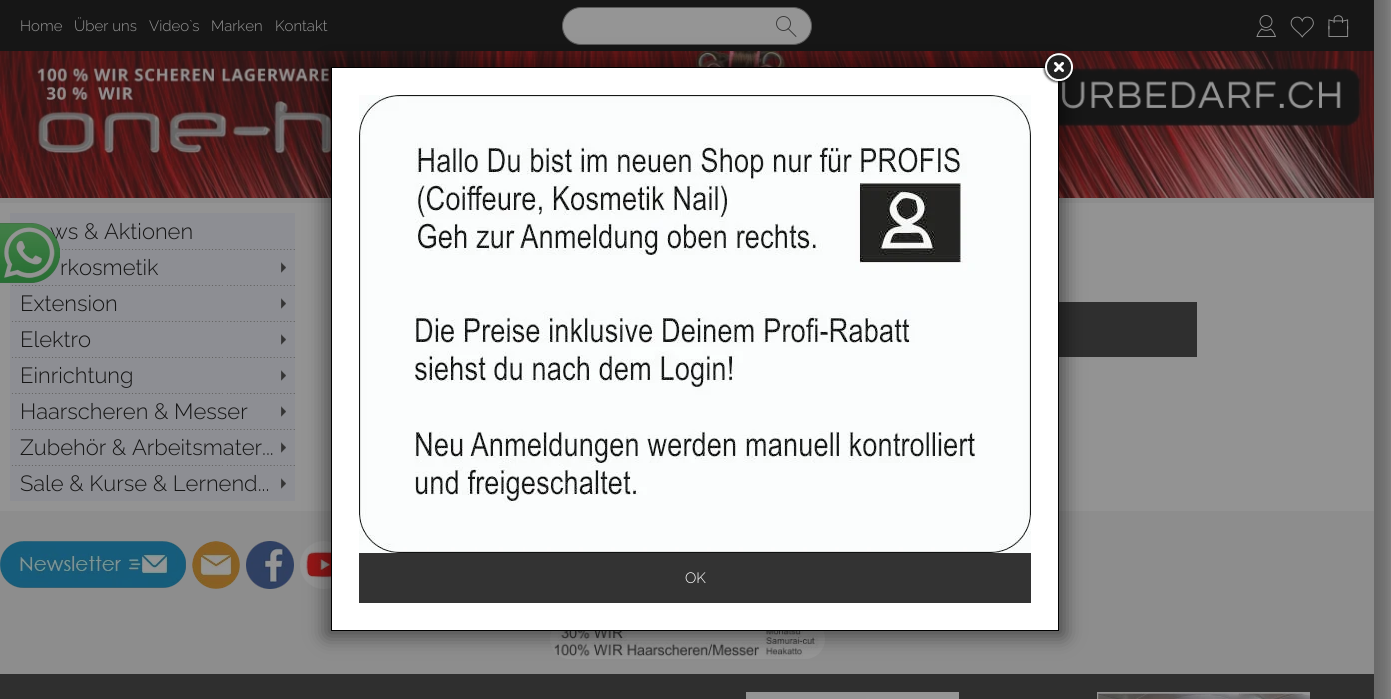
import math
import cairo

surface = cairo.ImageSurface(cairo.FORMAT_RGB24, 1391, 699)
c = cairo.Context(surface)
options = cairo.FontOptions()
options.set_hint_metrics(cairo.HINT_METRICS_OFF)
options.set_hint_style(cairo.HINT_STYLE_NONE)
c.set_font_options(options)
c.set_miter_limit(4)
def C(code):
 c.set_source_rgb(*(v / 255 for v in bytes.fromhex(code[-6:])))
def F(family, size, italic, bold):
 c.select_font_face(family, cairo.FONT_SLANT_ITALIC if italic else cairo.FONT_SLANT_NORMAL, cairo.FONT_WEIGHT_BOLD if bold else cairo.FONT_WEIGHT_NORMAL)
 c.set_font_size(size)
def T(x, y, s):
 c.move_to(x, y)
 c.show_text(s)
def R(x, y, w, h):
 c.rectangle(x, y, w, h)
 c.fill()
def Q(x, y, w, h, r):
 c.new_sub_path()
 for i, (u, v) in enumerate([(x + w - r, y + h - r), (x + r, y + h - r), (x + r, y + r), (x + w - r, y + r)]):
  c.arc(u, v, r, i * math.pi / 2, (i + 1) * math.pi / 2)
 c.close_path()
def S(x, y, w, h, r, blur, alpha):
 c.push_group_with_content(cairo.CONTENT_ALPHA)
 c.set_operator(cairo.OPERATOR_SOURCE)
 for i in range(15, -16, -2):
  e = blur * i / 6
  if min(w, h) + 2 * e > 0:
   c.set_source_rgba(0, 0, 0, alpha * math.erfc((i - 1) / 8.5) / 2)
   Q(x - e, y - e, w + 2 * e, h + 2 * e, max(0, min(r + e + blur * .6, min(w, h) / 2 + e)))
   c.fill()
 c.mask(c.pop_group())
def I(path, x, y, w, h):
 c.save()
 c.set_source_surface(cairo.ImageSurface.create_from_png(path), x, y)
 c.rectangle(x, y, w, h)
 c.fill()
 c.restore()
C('8d8d8d')
c.paint()
C('161616')
S(-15,-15,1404,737,0,7.5,.3)
C('8d8d8d')
R(0,198,1374,476)
C('161616')
R(0,0,1374,51)
F('Raleway Light',15,0,0)
C('959595')
T(20,31,'Home')
T(74,31,'Über uns')
T(149,31,'Video`s')
T(211,31,'Marken')
T(275,31,'Kontakt')
Q(562.5,7.5,249,37,18.5)
c.fill_preserve()
C('5a5a5a')
c.set_line_width(1)
c.stroke()
c.arc(783.5,23.5,7,0,2 * math.pi)
C('353535')
c.set_line_width(.9)
c.stroke()
c.new_path()
c.move_to(788,28.5)
c.line_to(796,36.5)
c.set_line_cap(cairo.LINE_CAP_ROUND)
c.stroke()
I('1.png',1256,15,20,22)
I('2.png',1290,16,24,22)
I('3.png',1328,15,21,22)
I('4.png',0,51,1374,147)
C('939393')
R(0,203,1374,308)
C('2f2f2f')
R(1059,302,138,55)
C('8d8e93')
R(10,213,285,288)
F('Raleway Light',22,0,0)
C('161616')
T(50,239,'ws & Aktionen')
I('5.png',60,249,235,1)
T(60,275,'rkosmetik')
I('6.png',281,262,5,11)
I('7.png',11,285,284,1)
T(20,311,'Extension')
I('6.png',281,298,5,11)
I('7.png',11,321,284,1)
T(20,347,'Elektro')
I('6.png',281,334,5,11)
I('7.png',11,357,284,1)
T(20,383,'Einrichtung')
I('6.png',281,370,5,11)
I('7.png',11,393,284,1)
T(20,419,'Haarscheren & Messer')
I('6.png',281,406,5,11)
I('7.png',11,429,284,1)
T(20,455,'Zubehör & Arbeitsmater...')
I('6.png',281,442,5,11)
I('7.png',11,465,284,1)
T(20,491,'Sale & Kurse & Lernend...')
I('6.png',281,478,5,11)
I('8.png',0,541,186,47)
I('9.png',192,541,48,48)
I('10.png',246,541,48,48)
I('11.png',300,541,31,48)
I('12.png',550,631,275,28)
C('2f2f2f')
R(0,674,1374,25)
I('13.png',746,692,213,7)
I('14.png',1097,692,213,7)
I('15.png',0,223,60,60)
C('000000')
S(326,62,738,574,0,10,.5)
C('ffffff')
c.rectangle(331.5,67.5,727,563)
c.fill_preserve()
C('000000')
c.set_line_width(1)
c.set_line_cap(cairo.LINE_CAP_BUTT)
c.stroke()
I('16.png',1042,53,32,31)
I('17.png',359,95,672,458)
C('333333')
R(359,553,672,50)
F('Raleway Light',15,0,0)
C('ffffff')
T(685,583,'OK')
surface.write_to_png('o.png')
